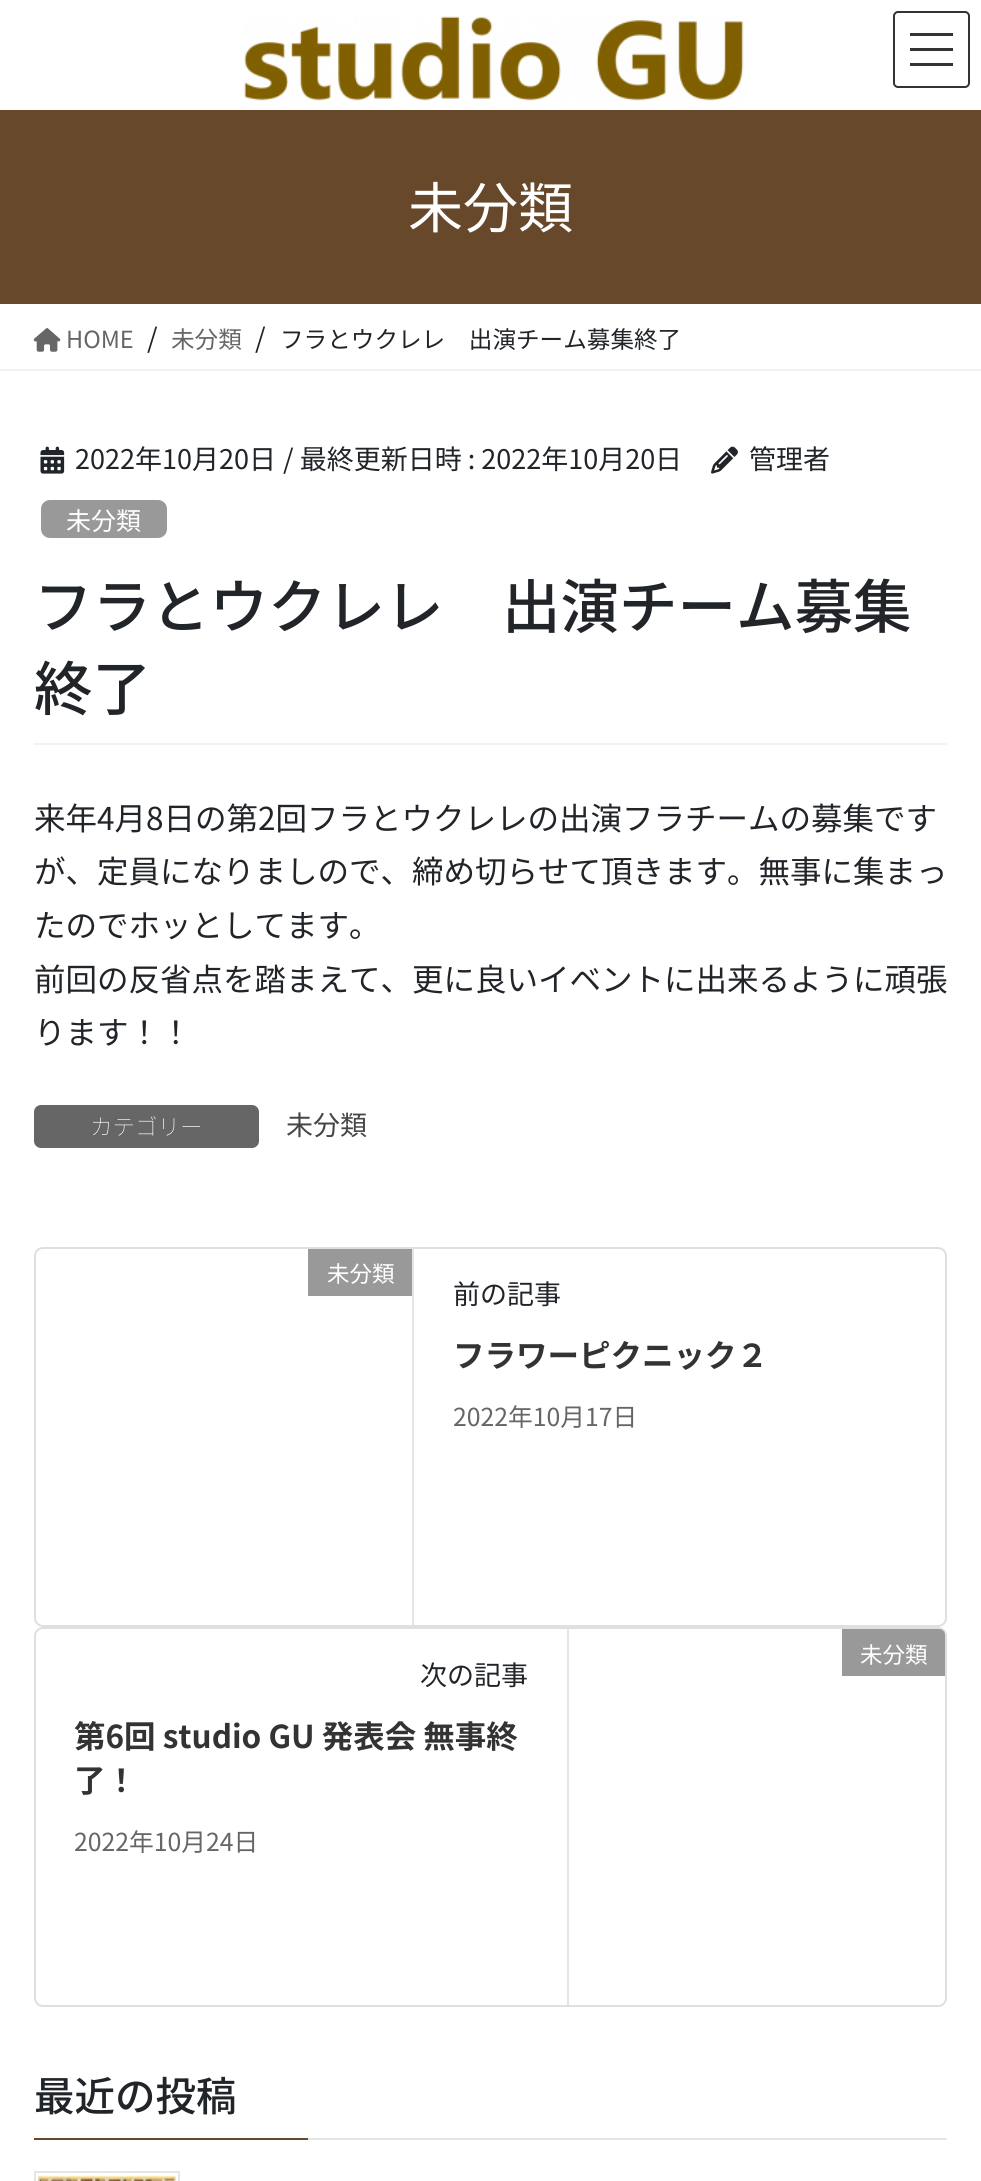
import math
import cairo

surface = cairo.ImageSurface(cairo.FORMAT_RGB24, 981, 2181)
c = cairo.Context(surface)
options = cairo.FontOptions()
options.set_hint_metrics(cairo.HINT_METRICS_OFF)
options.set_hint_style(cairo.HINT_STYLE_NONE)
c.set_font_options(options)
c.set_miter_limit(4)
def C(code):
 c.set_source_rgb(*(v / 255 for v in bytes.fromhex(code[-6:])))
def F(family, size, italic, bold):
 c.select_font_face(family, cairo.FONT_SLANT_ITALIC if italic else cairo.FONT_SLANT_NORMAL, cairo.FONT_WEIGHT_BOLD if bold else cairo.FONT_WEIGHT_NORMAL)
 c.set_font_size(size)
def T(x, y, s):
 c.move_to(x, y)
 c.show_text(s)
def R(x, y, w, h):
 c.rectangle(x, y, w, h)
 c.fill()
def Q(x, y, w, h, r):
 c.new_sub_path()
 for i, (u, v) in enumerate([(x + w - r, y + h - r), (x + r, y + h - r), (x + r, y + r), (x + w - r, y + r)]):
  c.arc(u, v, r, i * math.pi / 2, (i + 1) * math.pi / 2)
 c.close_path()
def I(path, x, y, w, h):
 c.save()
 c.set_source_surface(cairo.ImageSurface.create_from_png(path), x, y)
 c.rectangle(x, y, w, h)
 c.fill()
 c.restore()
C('ffffff')
c.paint()
I('1.png',244,16,500,85)
C('333333')
R(910,33,43,3)
R(910,48,43,3)
R(910,63,43,3)
Q(894,12,75,75,4)
c.stroke()
C('68482a')
R(0,110,981,194)
F('Noto Sans JP',55,0,0)
C('ffffff')
T(408,228,'未分類')
C('f2f2f2')
R(0,369,981,2)
I('2.png',33,328,28,24)
F('Noto Sans JP',23.6,0,0)
C('666666')
T(66,348,'HOME')
F('Noto Sans JP',27,0,0)
C('212529')
T(147,348,'/')
F('Noto Sans JP',23.6,0,0)
C('666666')
T(171,348,'未分類')
F('Noto Sans JP',27,0,0)
C('212529')
T(255,348,'/')
F('Noto Sans JP',23.6,0,0)
T(280,348,'フラとウクレレ　出演チーム募集終了')
C('f2f2f2')
R(34,743,913,2)
I('3.png',40,446,25,28)
F('Noto Sans JP',27,0,0)
C('212529')
T(75,469,'2022年10月20日')
T(283,469,'/ 最終更新日時 : 2022年10月20日')
I('4.png',711,446,27,28)
T(749,469,'管理者')
C('999999')
Q(41,500,126,38,9)
c.fill()
F('Noto Sans JP',25,0,0)
C('ffffff')
T(66,530,'未分類')
F('Noto Sans JP Medium',58.5,0,0)
C('212529')
T(34,628,'フラとウクレレ　出演チーム募集')
T(34,710,'終了')
F('Noto Sans JP',31.5,0,0)
T(34,830,'来年4月8日の第2回フラとウクレレの出演フラチームの募集です')
T(34,883,'が、定員になりましので、締め切らせて頂きます。無事に集まっ')
T(34,937,'たのでホッとしてます。')
T(34,991,'前回の反省点を踏まえて、更に良いイベントに出来るように頑張')
T(34,1044,'ります！！')
C('666666')
Q(34,1105,225,43,7)
c.fill()
F('Noto Sans JP Thin',22.5,0,0)
C('ffffff')
T(90,1135,'カテゴリー')
F('Noto Sans JP',27,0,0)
C('464646')
T(286,1135,'未分類')
Q(35,1248,911,378,8)
C('dfdfdf')
c.stroke()
C('e5e5e5')
R(412,1249,2,376)
C('999999')
R(308,1249,104,47)
F('Noto Sans JP',22.5,0,0)
C('ffffff')
T(327,1282,'未分類')
F('Noto Sans JP',27,0,0)
C('212529')
T(453,1304,'前の記事')
F('Noto Sans JP',31.5,0,1)
C('333333')
T(453,1367,'フラワーピクニック２')
F('Noto Sans JP',24.75,0,0)
C('666666')
T(453,1426,'2022年10月17日')
Q(35,1628,911,378,8)
C('dfdfdf')
c.stroke()
C('e5e5e5')
R(567,1629,2,376)
C('999999')
c.new_path()
c.move_to(842,1629)
c.line_to(939,1629)
c.curve_to(942.5,1629,945,1631.5,945,1635)
c.line_to(945,1676)
c.line_to(842,1676)
c.close_path()
c.fill()
F('Noto Sans JP',22.5,0,0)
C('ffffff')
T(860,1663,'未分類')
F('Noto Sans JP',27,0,0)
C('212529')
T(420,1685,'次の記事')
F('Noto Sans JP',31.5,0,1)
C('333333')
T(74,1748,'第6回 studio GU 発表会 無事終')
T(74,1792,'了！')
F('Noto Sans JP',24.75,0,0)
C('666666')
T(74,1851,'2022年10月24日')
C('e6e6e6')
R(308,2138,639,2)
F('Noto Sans JP Medium',40.5,0,0)
C('212529')
T(34,2111,'最近の投稿')
C('68482a')
R(34,2138,274,2)
c.rectangle(35,2172,144,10)
C('e5e5e5')
c.stroke()
I('5.png',38,2175,138,6)
surface.write_to_png('o.png')
